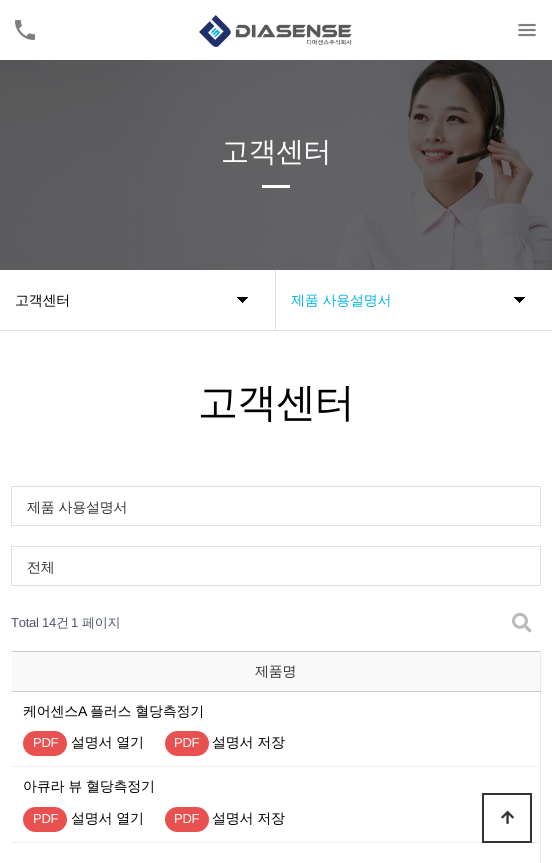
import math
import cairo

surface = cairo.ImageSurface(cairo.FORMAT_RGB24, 552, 863)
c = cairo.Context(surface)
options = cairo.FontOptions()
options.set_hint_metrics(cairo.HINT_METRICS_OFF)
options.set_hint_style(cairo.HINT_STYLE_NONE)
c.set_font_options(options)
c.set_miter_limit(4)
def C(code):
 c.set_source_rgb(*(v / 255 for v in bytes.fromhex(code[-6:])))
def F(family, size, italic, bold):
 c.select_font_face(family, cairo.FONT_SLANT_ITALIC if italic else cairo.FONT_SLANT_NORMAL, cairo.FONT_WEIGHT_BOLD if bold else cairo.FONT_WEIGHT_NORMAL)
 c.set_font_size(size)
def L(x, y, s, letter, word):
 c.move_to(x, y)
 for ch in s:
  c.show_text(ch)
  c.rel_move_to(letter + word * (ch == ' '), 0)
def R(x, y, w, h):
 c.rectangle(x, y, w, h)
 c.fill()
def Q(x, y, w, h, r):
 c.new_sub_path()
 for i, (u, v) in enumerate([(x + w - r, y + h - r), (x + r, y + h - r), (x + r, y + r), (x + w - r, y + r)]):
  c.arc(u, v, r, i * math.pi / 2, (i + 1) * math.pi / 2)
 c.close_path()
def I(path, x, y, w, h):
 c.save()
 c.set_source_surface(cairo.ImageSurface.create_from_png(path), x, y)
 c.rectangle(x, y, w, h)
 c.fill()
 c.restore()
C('ffffff')
c.paint()
I('1.png',199,15,153,32)
I('2.png',15,20,20,20)
I('3.png',518,23,18,14)
I('4.png',0,60,552,210)
F('WenQuanYi Zen Hei Medium',28,0,0)
C('ffffff')
L(221,161,'고객센터',-.5,0)
R(262,185,28,3)
C('dddddd')
R(0,330,552,1)
R(275,270,1,60)
I('5.png',237,297,11,6)
F('WenQuanYi Zen Hei Medium',14,0,0)
C('000000')
L(15,305,'고객센터',-.25,0)
I('5.png',514,297,11,6)
C('02b4e3')
L(291,305,'제품 사용설명서',-.25,0)
F('WenQuanYi Zen Hei Medium',40,0,0)
C('000000')
L(198,416,'고객센터',-1,0)
c.rectangle(11.5,486.5,529,39)
C('dddddd')
c.set_line_width(1)
c.stroke()
F('WenQuanYi Zen Hei Medium',14,0,0)
C('333333')
L(27,512,'제품 사용설명서',-.25,0)
c.rectangle(11.5,546.5,529,39)
C('dddddd')
c.stroke()
C('333333')
L(27,572,'전체',-.25,0)
F('Liberation Sans',13,0,0)
C('4e546f')
L(11,627,'Total 14',-.25,0)
F('WenQuanYi Zen Hei Medium',13,0,0)
L(56,627,'건',-.25,0)
F('Liberation Sans',13,0,0)
L(71,627,'1',-.25,0)
F('WenQuanYi Zen Hei Medium',13,0,0)
L(82,627,'페이지',-.25,0)
I('6.png',512,612,20,21)
C('ececec')
R(11,651,1,1)
C('f9f9f9')
R(12,652,528,39)
C('cbcbcb')
R(12,651,529,1)
C('e9e9e9')
R(540,691,1,172)
R(540,651,1,41)
C('cbcbcb')
R(12,691,529,1)
F('WenQuanYi Zen Hei Medium',14,0,0)
C('333333')
L(255,676,'제품명',-.25,0)
C('ecf0f1')
R(12,766,529,1)
C('000000')
L(23,716,'케어센스',-.25,0)
F('Liberation Sans',14,0,0)
L(78,716,'A',-.25,0)
F('WenQuanYi Zen Hei Medium',14,0,0)
L(90,716,'플러스 혈당측정기',-.25,0)
C('e95151')
Q(23,731,44,25,12.5)
c.fill()
F('Liberation Sans',13,0,0)
C('ffffff')
L(33,747,'PDF',-.25,0)
F('WenQuanYi Zen Hei Medium',14,0,0)
C('000000')
L(71,747,'설명서 열기',-.25,0)
C('e95151')
Q(165,731,44,25,12.5)
c.fill()
F('Liberation Sans',13,0,0)
C('ffffff')
L(174,747,'PDF',-.25,0)
F('WenQuanYi Zen Hei Medium',14,0,0)
C('000000')
L(212,747,'설명서 저장',-.25,0)
C('ecf0f1')
R(12,842,529,1)
C('000000')
L(23,791,'아큐라 뷰 혈당측정기',-.25,0)
C('e95151')
Q(23,807,44,25,12.5)
c.fill()
F('Liberation Sans',13,0,0)
C('ffffff')
L(33,823,'PDF',-.25,0)
F('WenQuanYi Zen Hei Medium',14,0,0)
C('000000')
L(71,823,'설명서 열기',-.25,0)
C('e95151')
Q(165,807,44,25,12.5)
c.fill()
F('Liberation Sans',13,0,0)
C('ffffff')
L(174,823,'PDF',-.25,0)
F('WenQuanYi Zen Hei Medium',14,0,0)
C('000000')
L(212,823,'설명서 저장',-.25,0)
c.rectangle(483,794,48,48)
C('333333')
c.set_line_width(2)
c.stroke()
I('7.png',501,810,13,14)
surface.write_to_png('o.png')
